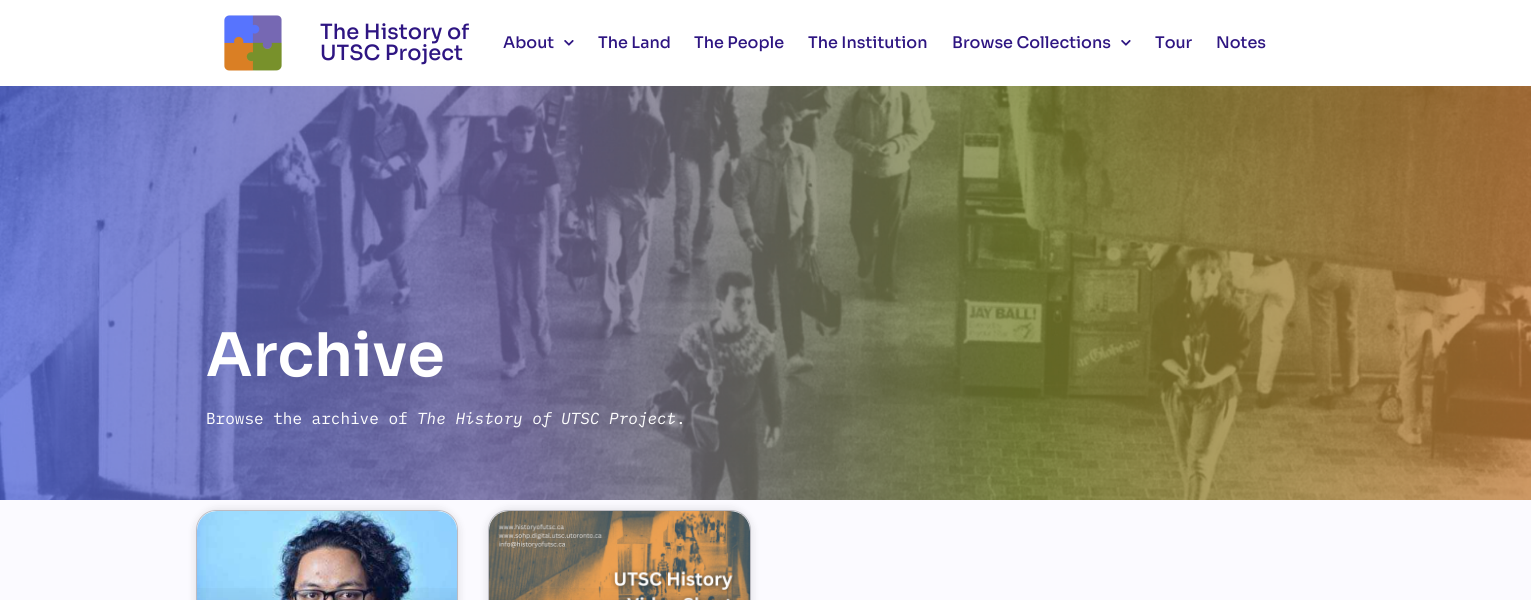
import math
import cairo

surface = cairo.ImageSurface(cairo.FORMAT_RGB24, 1531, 600)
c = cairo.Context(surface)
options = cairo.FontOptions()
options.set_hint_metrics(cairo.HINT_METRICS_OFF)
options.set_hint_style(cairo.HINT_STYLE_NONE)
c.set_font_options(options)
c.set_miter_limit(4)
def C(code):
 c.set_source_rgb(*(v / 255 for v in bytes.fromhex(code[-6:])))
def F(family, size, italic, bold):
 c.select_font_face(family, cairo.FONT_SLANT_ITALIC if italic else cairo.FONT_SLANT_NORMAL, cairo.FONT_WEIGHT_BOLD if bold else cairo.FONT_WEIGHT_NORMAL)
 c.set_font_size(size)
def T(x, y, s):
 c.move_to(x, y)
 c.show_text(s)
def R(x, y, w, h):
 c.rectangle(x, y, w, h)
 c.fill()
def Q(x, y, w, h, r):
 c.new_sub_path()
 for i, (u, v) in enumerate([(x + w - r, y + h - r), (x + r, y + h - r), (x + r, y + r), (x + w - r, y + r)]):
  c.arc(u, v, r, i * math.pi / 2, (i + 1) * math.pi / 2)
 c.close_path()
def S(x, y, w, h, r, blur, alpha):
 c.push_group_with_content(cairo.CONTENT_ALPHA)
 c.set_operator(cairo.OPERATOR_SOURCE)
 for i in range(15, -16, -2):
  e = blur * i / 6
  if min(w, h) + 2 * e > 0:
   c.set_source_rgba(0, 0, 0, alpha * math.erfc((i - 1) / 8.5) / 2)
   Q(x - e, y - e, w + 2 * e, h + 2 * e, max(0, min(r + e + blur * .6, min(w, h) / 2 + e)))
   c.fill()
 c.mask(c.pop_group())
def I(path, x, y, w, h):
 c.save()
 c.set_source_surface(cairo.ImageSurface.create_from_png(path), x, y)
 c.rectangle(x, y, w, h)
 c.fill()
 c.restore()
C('ffffff')
c.paint()
I('1.png',224,15,58,56)
F('Sora Medium',21,0,0)
C('2e1582')
T(320,39,'The History of')
T(320,60,'UTSC Project')
F('Sora Medium',16,0,0)
T(503,48,'About')
I('2.png',564,40,10,6)
T(598,48,'The Land')
T(694,48,'The People')
T(808,48,'The Institution')
T(952,48,'Browse Collections')
I('2.png',1121,40,10,6)
T(1155,48,'Tour')
T(1216,48,'Notes')
I('3.png',0,86,1531,414)
F('Sora SemiBold',60,0,0)
C('ffffff')
T(206,376,'Archive')
F('IBM Plex Mono',16,0,0)
T(206,424,'Browse the archive of')
F('IBM Plex Mono',16,1,0)
T(417,424,'The History of UTSC Project')
F('IBM Plex Mono',16,0,0)
T(676,424,'.')
C('fbfaff')
R(0,500,1531,100)
C('ffffff')
Q(196.5,510.5,261,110,19.5)
c.fill_preserve()
C('cac9d1')
c.set_line_width(1)
c.stroke()
C('000000')
S(197,511,260,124,20,5,.15)
C('ffffff')
Q(197,511,260,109,20)
c.fill()
I('4.png',197,511,260,89)
gradient = cairo.LinearGradient(327,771,327,511)
gradient.add_color_stop_rgba(0,0,0,0,.35)
gradient.add_color_stop_rgba(.75,0,0,0,0)
c.set_source(gradient)
R(197,588,260,12)
C('ffffff')
Q(488.5,510.5,262,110,19.5)
c.fill_preserve()
C('cac9d1')
c.stroke()
C('000000')
S(489,511,261,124,20,5,.15)
C('ffffff')
Q(489,511,261,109,20)
c.fill()
I('5.png',489,511,261,89)
gradient = cairo.LinearGradient(620,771,620,511)
gradient.add_color_stop_rgba(0,0,0,0,.35)
gradient.add_color_stop_rgba(.75,0,0,0,0)
c.set_source(gradient)
R(489,588,261,12)
surface.write_to_png('o.png')
